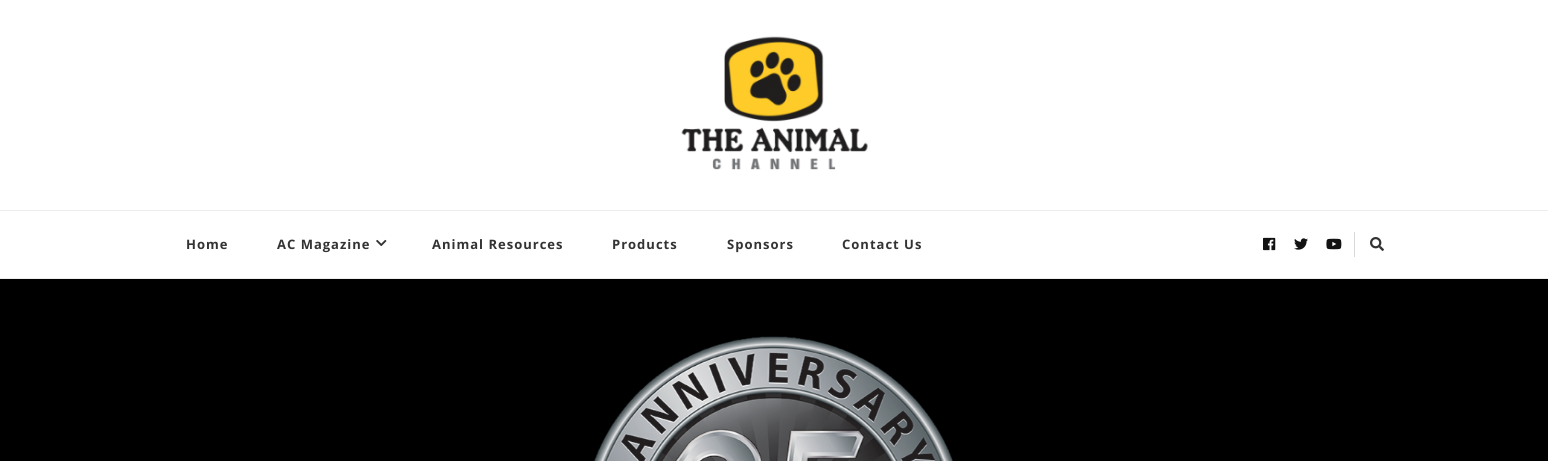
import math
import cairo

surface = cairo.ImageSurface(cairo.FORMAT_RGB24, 1548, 461)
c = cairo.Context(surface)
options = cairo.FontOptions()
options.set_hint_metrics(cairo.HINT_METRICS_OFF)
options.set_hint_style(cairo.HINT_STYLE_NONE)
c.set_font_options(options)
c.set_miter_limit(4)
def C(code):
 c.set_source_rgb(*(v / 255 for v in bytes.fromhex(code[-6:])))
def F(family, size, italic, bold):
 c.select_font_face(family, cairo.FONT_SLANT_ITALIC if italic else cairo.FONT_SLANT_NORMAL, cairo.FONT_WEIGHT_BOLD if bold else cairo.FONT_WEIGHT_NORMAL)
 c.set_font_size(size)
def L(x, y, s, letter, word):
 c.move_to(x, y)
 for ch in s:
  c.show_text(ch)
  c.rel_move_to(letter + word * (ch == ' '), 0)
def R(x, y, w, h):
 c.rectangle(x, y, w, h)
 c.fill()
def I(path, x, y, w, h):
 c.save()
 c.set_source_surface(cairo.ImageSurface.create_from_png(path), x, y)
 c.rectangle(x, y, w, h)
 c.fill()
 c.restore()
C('ffffff')
c.paint()
I('1.png',681,36,187,134)
C('ededed')
R(0,210,1548,1)
R(0,278,1548,1)
F('Open Sans',13,0,1)
C('333333')
L(186,249,'Home',1,0)
L(277,249,'AC Magazine',1,0)
I('2.png',376,239,11,8)
L(432,249,'Animal Resources',1,0)
L(612,249,'Products',1,0)
L(727,249,'Sponsors',1,0)
L(842,249,'Contact Us',1,0)
I('3.png',1263,237,13,14)
I('4.png',1294,238,14,12)
I('5.png',1326,238,16,12)
C('d9d9d9')
R(1354,232,1,25)
I('6.png',1370,237,14,14)
C('000000')
R(0,279,1548,182)
I('7.png',594,336,359,125)
surface.write_to_png('o.png')
